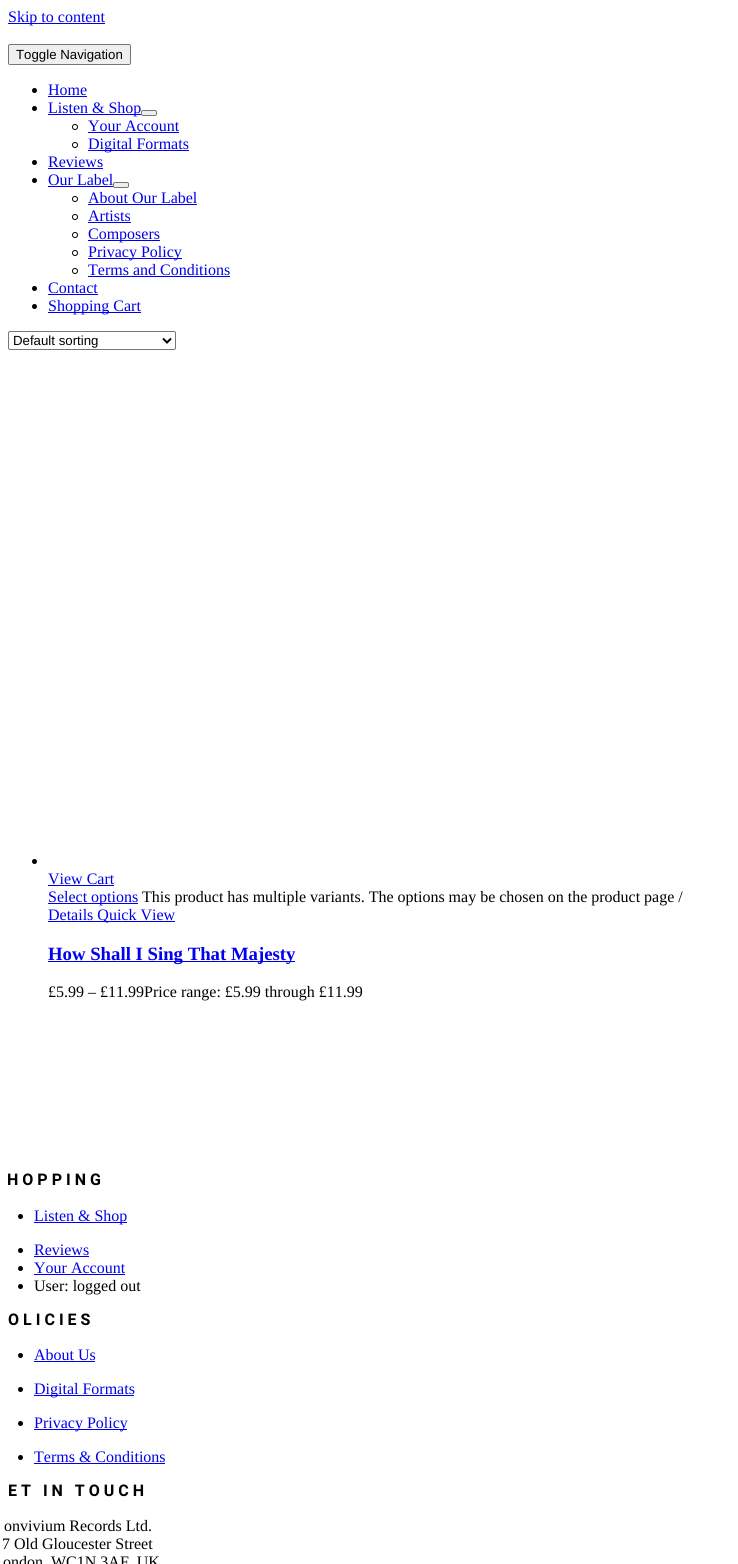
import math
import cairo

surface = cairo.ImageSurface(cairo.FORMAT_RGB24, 738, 1564)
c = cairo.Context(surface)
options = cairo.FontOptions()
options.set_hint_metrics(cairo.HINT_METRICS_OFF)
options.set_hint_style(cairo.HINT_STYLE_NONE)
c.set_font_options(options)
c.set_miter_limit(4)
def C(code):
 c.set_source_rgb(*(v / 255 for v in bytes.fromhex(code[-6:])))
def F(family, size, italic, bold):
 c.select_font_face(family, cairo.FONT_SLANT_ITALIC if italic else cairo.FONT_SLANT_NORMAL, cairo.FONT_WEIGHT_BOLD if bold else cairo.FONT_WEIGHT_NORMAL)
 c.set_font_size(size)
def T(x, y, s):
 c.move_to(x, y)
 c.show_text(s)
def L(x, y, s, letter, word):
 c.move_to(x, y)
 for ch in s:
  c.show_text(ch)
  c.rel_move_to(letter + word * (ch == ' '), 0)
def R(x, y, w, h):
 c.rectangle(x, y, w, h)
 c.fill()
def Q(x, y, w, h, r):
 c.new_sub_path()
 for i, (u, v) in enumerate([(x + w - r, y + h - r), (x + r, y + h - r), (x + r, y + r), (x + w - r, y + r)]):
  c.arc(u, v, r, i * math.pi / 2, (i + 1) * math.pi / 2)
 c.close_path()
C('ffffff')
c.paint()
C('0000ee')
R(8,23,97,1)
F('Liberation Serif',16,0,0)
T(8,22,'Skip to content')
C('efefef')
Q(8.5,44.5,122,20,1.5)
c.fill_preserve()
C('767676')
c.set_line_width(1)
c.stroke()
F('Liberation Sans',13.25,0,0)
C('000000')
T(16,59,'Toggle Navigation')
c.new_path()
c.arc(34.5,90.5,2.5,0,2 * math.pi)
c.fill()
F('Liberation Serif',16,0,0)
C('0000ee')
T(48,95,'Home')
R(48,96,39,1)
C('000000')
c.new_path()
c.arc(34.5,108.5,2.5,0,2 * math.pi)
c.fill()
C('0000ee')
R(48,114,93,1)
T(48,113,'Listen & Shop')
C('efefef')
Q(141.5,110.5,15,5,1.5)
c.fill_preserve()
C('767676')
c.stroke()
c.arc(75,127,2.5,0,2 * math.pi)
C('000000')
c.stroke()
C('0000ee')
T(88,131,'Your Account')
R(88,132,91,1)
c.new_path()
c.arc(75,145,2.5,0,2 * math.pi)
C('000000')
c.stroke()
C('0000ee')
R(88,150,101,1)
T(88,149,'Digital Formats')
C('000000')
c.new_path()
c.arc(34.5,162.5,2.5,0,2 * math.pi)
c.fill()
C('0000ee')
T(48,167,'Reviews')
R(48,168,55,1)
C('000000')
c.new_path()
c.arc(34.5,180.5,2.5,0,2 * math.pi)
c.fill()
C('0000ee')
T(48,185,'Our Label')
R(48,186,65,1)
C('efefef')
Q(113.5,182.5,15,5,1.5)
c.fill_preserve()
C('767676')
c.stroke()
c.arc(75,199,2.5,0,2 * math.pi)
C('000000')
c.stroke()
C('0000ee')
T(88,203,'About Our Label')
R(88,204,109,1)
c.new_path()
c.arc(75,217,2.5,0,2 * math.pi)
C('000000')
c.stroke()
C('0000ee')
T(88,221,'Artists')
R(88,222,43,1)
c.new_path()
c.arc(75,235,2.5,0,2 * math.pi)
C('000000')
c.stroke()
C('0000ee')
R(88,240,72,1)
T(88,239,'Composers')
c.new_path()
c.arc(75,253,2.5,0,2 * math.pi)
C('000000')
c.stroke()
C('0000ee')
R(88,258,94,1)
T(88,257,'Privacy Policy')
c.new_path()
c.arc(75,271,2.5,0,2 * math.pi)
C('000000')
c.stroke()
C('0000ee')
T(88,275,'Terms and Conditions')
R(88,276,142,1)
C('000000')
c.new_path()
c.arc(34.5,288.5,2.5,0,2 * math.pi)
c.fill()
C('0000ee')
T(48,293,'Contact')
R(48,294,50,1)
C('000000')
c.new_path()
c.arc(34.5,306.5,2.5,0,2 * math.pi)
c.fill()
C('0000ee')
R(48,312,93,1)
T(48,311,'Shopping Cart')
Q(8.5,331.5,167,18,1.5)
C('767676')
c.stroke()
c.new_path()
c.move_to(163,338.5)
c.line_to(167,342.5)
c.line_to(171,338.5)
C('000000')
c.set_line_width(2)
c.stroke()
F('Liberation Sans',13.25,0,0)
T(13,345,'Default sorting')
c.new_path()
c.arc(34.5,861.5,2.5,0,2 * math.pi)
c.fill()
F('Liberation Serif',16,0,0)
C('0000ee')
T(48,884,'View Cart')
R(48,885,66,1)
R(48,903,90,1)
T(48,902,'Select options')
C('000000')
T(142,902,'This product has multiple variants. The options may be chosen on the product page /')
C('0000ee')
R(48,921,127,1)
T(48,920,'Details Quick View')
R(48,961,247,1)
F('Liberation Serif',18.75,0,1)
T(48,960,'How Shall I Sing That Majesty')
F('Liberation Serif',16,0,0)
C('000000')
T(48,997,'£5.99 – £11.99Price range: £5.99 through £11.99')
F('Heebo',16,0,1)
L(7,1185,'HOPPING',4,0)
c.new_path()
c.arc(20.5,1216.5,2.5,0,2 * math.pi)
c.fill()
C('0000ee')
R(34,1222,93,1)
F('Liberation Serif',16,0,0)
T(34,1221,'Listen & Shop')
C('000000')
c.new_path()
c.arc(20.5,1250.5,2.5,0,2 * math.pi)
c.fill()
C('0000ee')
T(34,1255,'Reviews')
R(34,1256,55,1)
C('000000')
c.new_path()
c.arc(20.5,1268.5,2.5,0,2 * math.pi)
c.fill()
C('0000ee')
T(34,1273,'Your Account')
R(34,1274,91,1)
C('000000')
c.new_path()
c.arc(20.5,1286.5,2.5,0,2 * math.pi)
c.fill()
T(34,1291,'User: logged out')
F('Heebo',16,0,1)
L(8,1325,'OLICIES',4,0)
c.new_path()
c.arc(20.5,1355.5,2.5,0,2 * math.pi)
c.fill()
F('Liberation Serif',16,0,0)
C('0000ee')
T(34,1360,'About Us')
R(34,1361,61,1)
C('000000')
c.new_path()
c.arc(20.5,1389.5,2.5,0,2 * math.pi)
c.fill()
C('0000ee')
R(34,1395,100,1)
T(34,1394,'Digital Formats')
C('000000')
c.new_path()
c.arc(20.5,1423.5,2.5,0,2 * math.pi)
c.fill()
C('0000ee')
R(34,1429,93,1)
T(34,1428,'Privacy Policy')
C('000000')
c.new_path()
c.arc(20.5,1457.5,2.5,0,2 * math.pi)
c.fill()
C('0000ee')
T(34,1462,'Terms & Conditions')
R(34,1463,131,1)
F('Heebo',16,0,1)
C('000000')
L(8,1496,'ET IN TOUCH',4,0)
F('Liberation Serif',16,0,0)
T(4,1531,'onvivium Records Ltd.')
T(2,1549,'7 Old Gloucester Street')
T(3,1567,'ondon, WC1N 3AF, UK')
surface.write_to_png('o.png')
